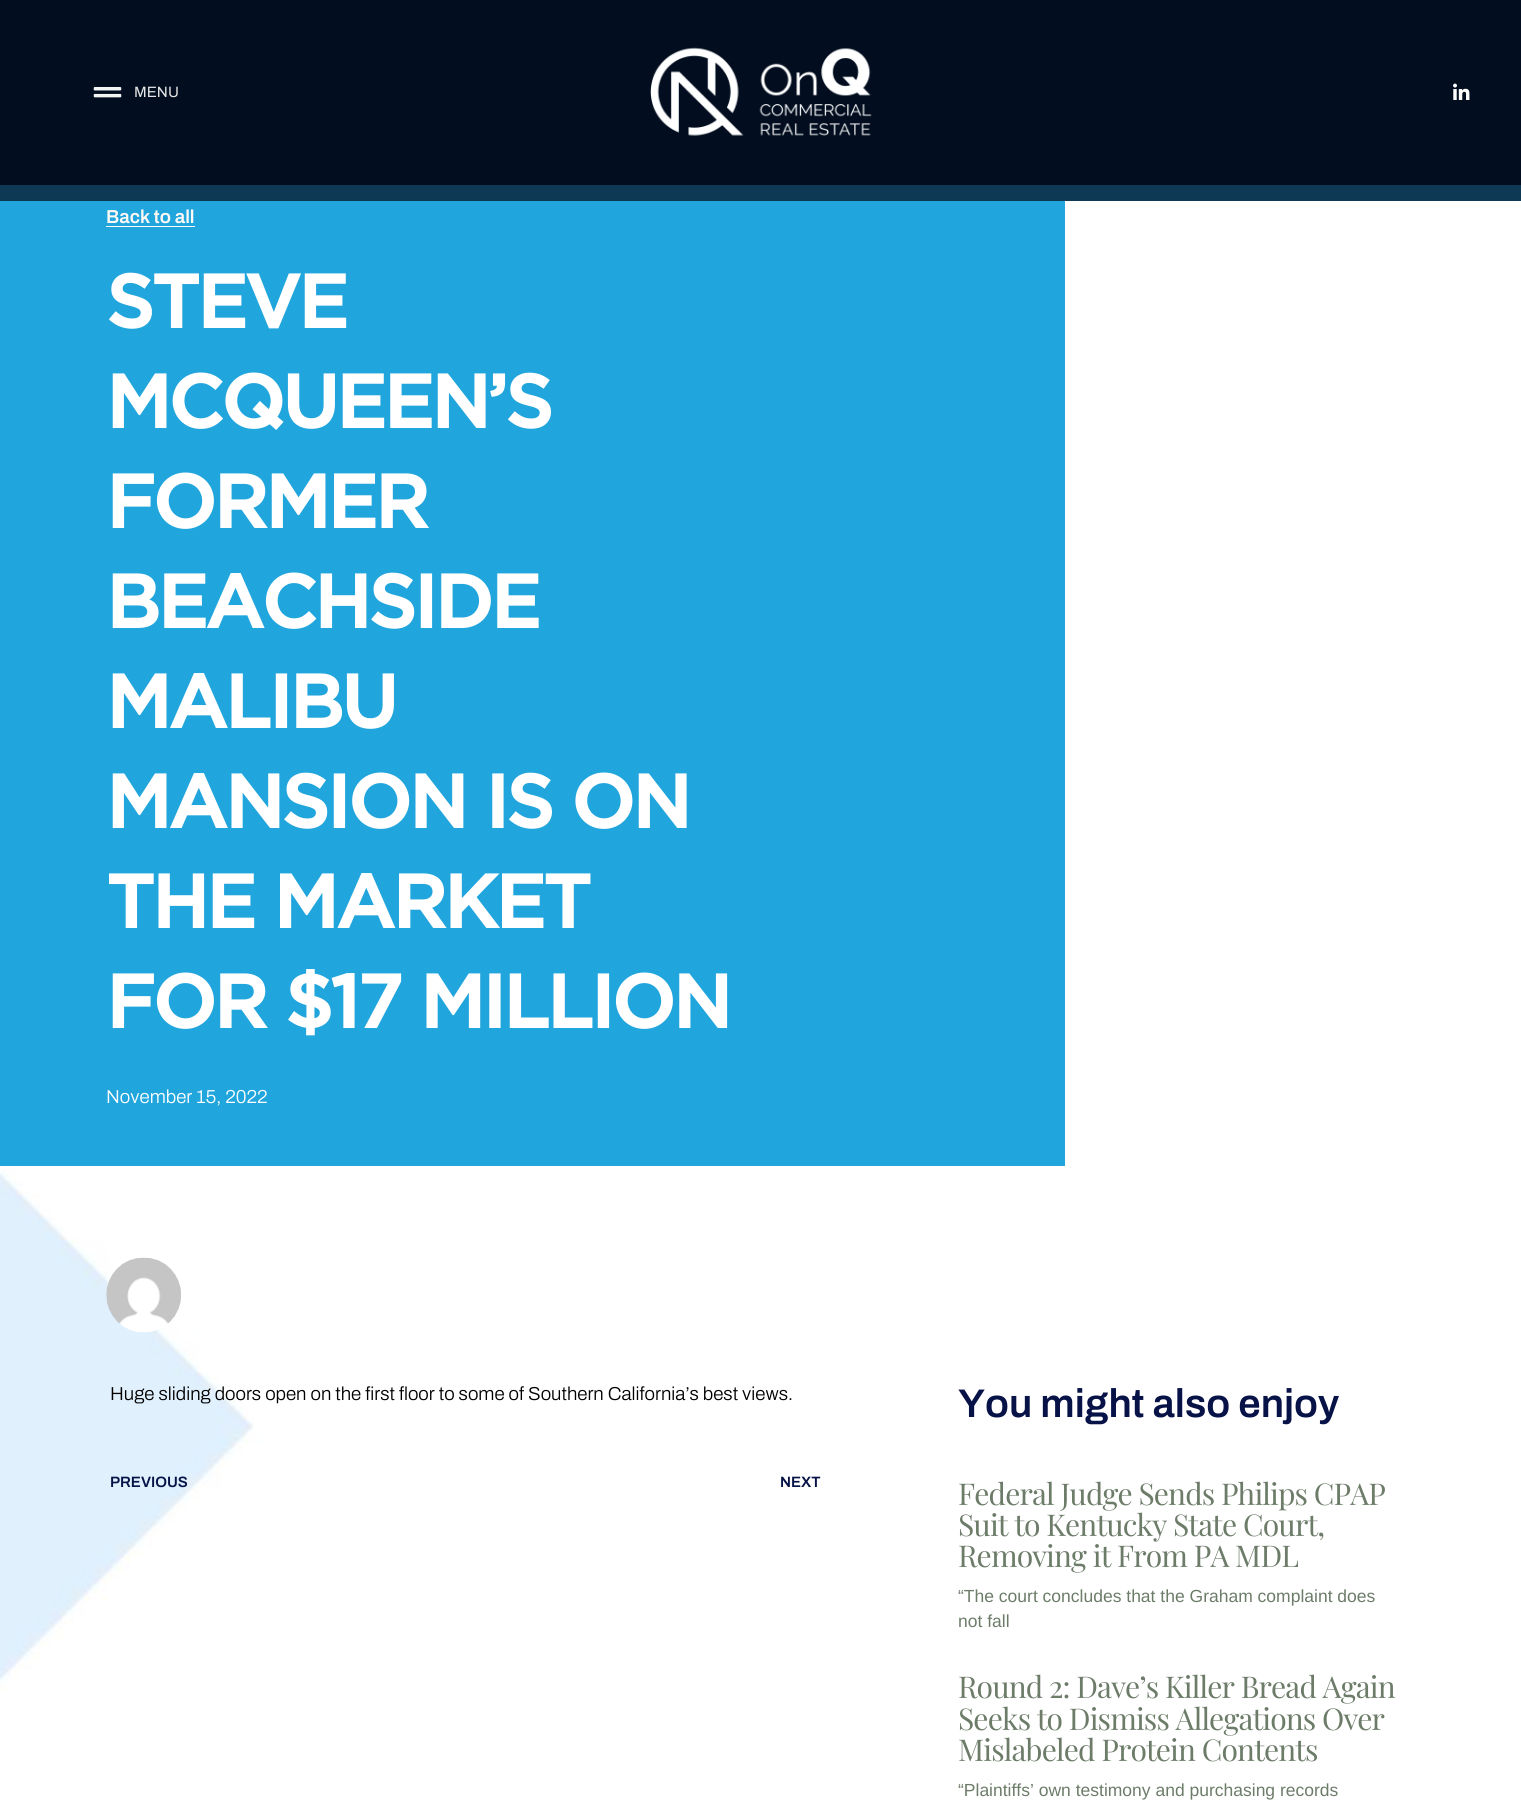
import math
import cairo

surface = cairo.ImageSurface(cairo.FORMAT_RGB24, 1521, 1803)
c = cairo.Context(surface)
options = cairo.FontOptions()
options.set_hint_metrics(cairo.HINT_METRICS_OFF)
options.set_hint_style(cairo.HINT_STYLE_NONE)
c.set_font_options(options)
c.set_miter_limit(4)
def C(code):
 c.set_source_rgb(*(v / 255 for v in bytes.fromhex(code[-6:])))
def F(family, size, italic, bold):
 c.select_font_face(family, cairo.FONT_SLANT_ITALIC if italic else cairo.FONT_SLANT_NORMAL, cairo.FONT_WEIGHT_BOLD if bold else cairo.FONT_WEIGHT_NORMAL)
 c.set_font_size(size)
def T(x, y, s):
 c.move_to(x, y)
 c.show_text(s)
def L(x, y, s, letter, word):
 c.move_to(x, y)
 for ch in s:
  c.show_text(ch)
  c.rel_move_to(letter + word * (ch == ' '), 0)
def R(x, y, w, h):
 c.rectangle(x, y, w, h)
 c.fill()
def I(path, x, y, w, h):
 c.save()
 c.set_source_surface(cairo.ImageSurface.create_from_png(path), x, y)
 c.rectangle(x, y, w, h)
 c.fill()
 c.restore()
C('ffffff')
c.paint()
I('1.png',0,201,1521,1602)
C('0d3955')
R(0,185,1521,16)
C('020e1f')
R(0,0,1521,185)
I('2.png',93,87,29,11)
F('Archivo',15,0,0)
C('e5e5e5')
T(134,97,'MENU')
I('3.png',650,47,222,89)
I('4.png',1453,83,17,17)
C('21a5dd')
R(0,201,1065,965)
C('fffaf5')
R(106,226,89,1)
F('Archivo SemiBold',18.75,0,0)
T(106,223,'Back to all')
F('Gotham',75,0,1)
C('ffffff')
L(106,328,'STEVE',-2.75,0)
L(106,428,'MCQUEEN’S',-2.75,0)
L(106,528,'FORMER',-2.75,0)
L(106,628,'BEACHSIDE',-2.75,0)
L(106,728,'MALIBU',-2.75,0)
L(106,828,'MANSION IS ON',-2.75,0)
L(106,928,'THE MARKET',-2.75,0)
L(106,1028,'FOR $17 MILLION',-2.75,0)
F('Archivo Light',18.75,0,0)
T(106,1103,'November 15, 2022')
I('5.png',106,1257,75,76)
C('000000')
T(110,1400,'Huge sliding doors open on the first floor to some of Southern California’s best views.')
F('Archivo SemiBold',15,0,0)
C('071247')
T(110,1487,'PREVIOUS')
T(780,1487,'NEXT')
F('Archivo SemiBold',40,0,0)
T(958,1417,'You might also enjoy')
F('Playfair Display',30,0,0)
C('6c7c69')
L(958,1505,'Federal Judge Sends Philips CPAP',-.85,0)
L(958,1536,'Suit to Kentucky State Court,',-.85,0)
L(958,1567,'Removing it From PA MDL',-.85,0)
F('Liberation Sans',17.5,0,0)
T(958,1602,'“The court concludes that the Graham complaint does')
T(958,1627,'not fall')
F('Playfair Display',30,0,0)
L(958,1698,'Round 2: Dave’s Killer Bread Again',-.85,0)
L(958,1730,'Seeks to Dismiss Allegations Over',-.85,0)
L(958,1761,'Mislabeled Protein Contents',-.85,0)
F('Liberation Sans',17.5,0,0)
T(958,1796,'“Plaintiffs’ own testimony and purchasing records')
surface.write_to_png('o.png')
